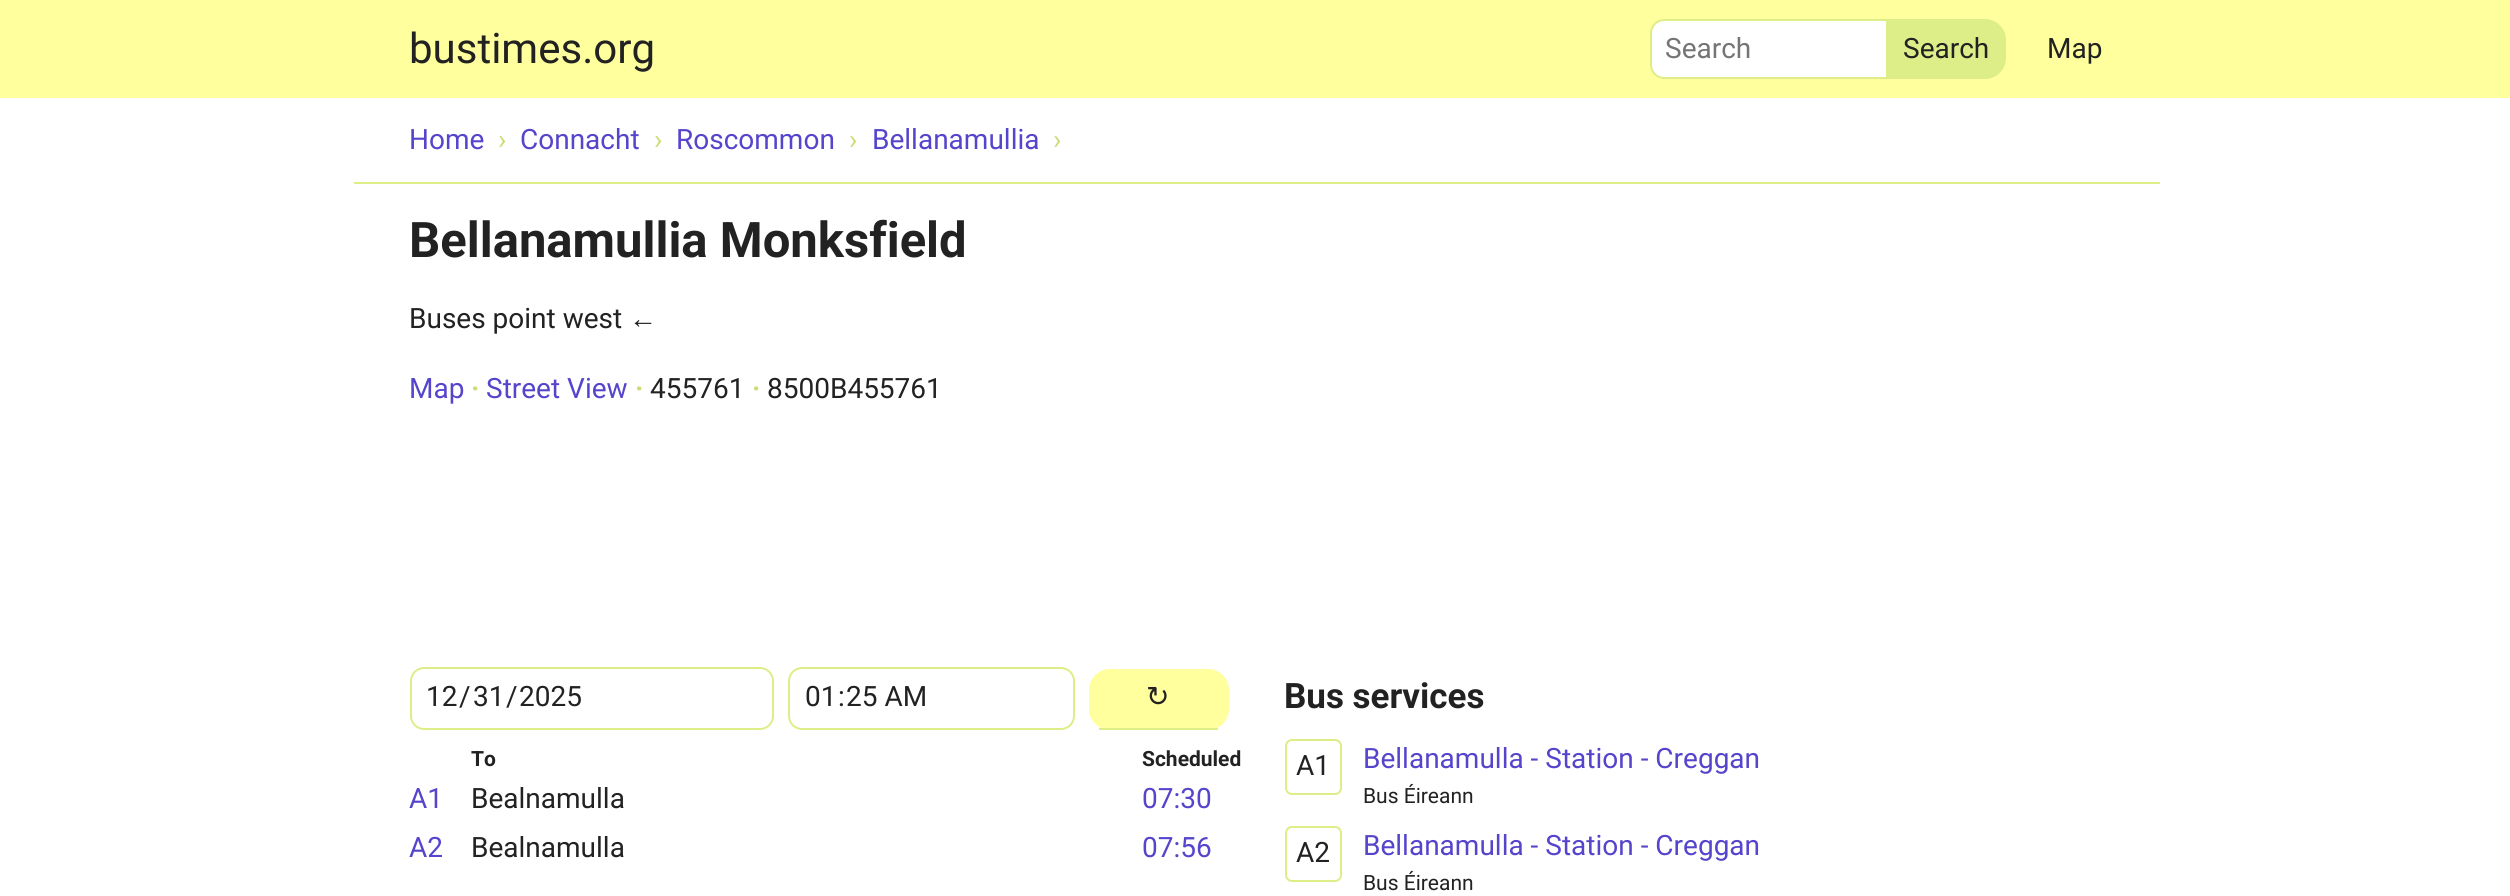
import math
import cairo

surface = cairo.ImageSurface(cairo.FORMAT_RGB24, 2510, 896)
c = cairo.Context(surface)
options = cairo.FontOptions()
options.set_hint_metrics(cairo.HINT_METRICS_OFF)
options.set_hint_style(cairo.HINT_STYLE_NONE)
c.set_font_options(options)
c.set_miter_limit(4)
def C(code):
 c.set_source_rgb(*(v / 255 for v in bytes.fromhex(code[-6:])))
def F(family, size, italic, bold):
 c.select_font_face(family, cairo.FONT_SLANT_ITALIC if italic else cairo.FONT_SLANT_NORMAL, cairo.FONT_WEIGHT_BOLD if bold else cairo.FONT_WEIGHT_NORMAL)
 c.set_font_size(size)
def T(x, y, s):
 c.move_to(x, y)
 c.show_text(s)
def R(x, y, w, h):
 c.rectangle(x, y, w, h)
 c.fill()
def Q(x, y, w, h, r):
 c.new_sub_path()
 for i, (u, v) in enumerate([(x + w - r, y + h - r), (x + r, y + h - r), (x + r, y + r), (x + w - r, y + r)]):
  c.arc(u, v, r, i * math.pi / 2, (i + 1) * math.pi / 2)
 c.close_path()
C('ffffff')
c.paint()
C('ffff9e')
R(0,0,2510,98)
F('Roboto',42,0,0)
C('222222')
T(409,63,'bustimes.org')
C('ffffff')
c.new_path()
c.move_to(1664,20)
c.line_to(1887,20)
c.line_to(1887,78)
c.line_to(1664,78)
c.curve_to(1657,78,1651,72,1651,65)
c.line_to(1651,33)
c.curve_to(1651,26,1657,20,1664,20)
c.close_path()
c.fill_preserve()
C('ddee88')
c.stroke()
F('Roboto',28,0,0)
C('757575')
T(1665,58,'Search')
C('ddee88')
c.new_path()
c.move_to(1889,20)
c.line_to(1985,20)
c.curve_to(1996,20,2005,29,2005,40)
c.line_to(2005,58)
c.curve_to(2005,69,1996,78,1985,78)
c.line_to(1889,78)
c.close_path()
c.fill_preserve()
c.stroke()
C('222222')
T(1903,58,'Search')
T(2047,58,'Map')
C('ddee88')
R(354,182,1806,2)
C('5544cc')
T(409,149,'Home')
C('ccdd77')
T(498,149,'›')
C('5544cc')
T(520,149,'Connacht')
C('ccdd77')
T(654,149,'›')
C('5544cc')
T(676,149,'Roscommon')
C('ccdd77')
T(849,149,'›')
C('5544cc')
T(872,149,'Bellanamullia')
C('ccdd77')
T(1053,149,'›')
F('Roboto',49,0,1)
C('222222')
T(409,257,'Bellanamullia Monksfield')
F('Roboto',28,0,0)
T(409,328,'Buses point west')
F('Liberation Sans',28,0,0)
T(629,328,'←')
F('Roboto',28,0,0)
C('5544cc')
T(409,398,'Map')
F('Roboto',28,0,1)
C('ccdd77')
T(471,398,'·')
F('Roboto',28,0,0)
C('5544cc')
T(486,398,'Street View')
F('Roboto',28,0,1)
C('ccdd77')
T(635,398,'·')
F('Roboto',28,0,0)
C('222222')
T(650,398,'455761')
F('Roboto',28,0,1)
C('ccdd77')
T(752,398,'·')
F('Roboto',28,0,0)
C('222222')
T(767,398,'8500B455761')
Q(411,668,362,61,13)
C('ddee88')
c.stroke()
C('222222')
T(426,706,'12')
T(459,706,'/')
T(473,706,'31')
T(506,706,'/')
T(519,706,'2025')
Q(789,668,285,61,13)
C('ddee88')
c.stroke()
C('222222')
T(805,706,'01')
T(838,706,':')
T(846,706,'25 AM')
C('ffff9e')
Q(1089,669,140,61,21)
c.fill()
C('ddee88')
R(1099,728,119,2)
F('DejaVu Sans',28,0,0)
C('222222')
T(1146,706,'↻')
F('Roboto',21,0,1)
T(471,766,'To')
T(1142,766,'Scheduled')
F('Roboto',28,0,0)
C('5544cc')
T(409,808,'A1')
C('222222')
T(471,808,'Bealnamulla')
C('5544cc')
T(1142,808,'07:30')
T(409,857,'A2')
C('222222')
T(471,857,'Bealnamulla')
C('5544cc')
T(1142,857,'07:56')
F('Roboto',35,0,1)
C('222222')
T(1284,708,'Bus services')
Q(1286,740,55,54,6)
C('ddee88')
c.stroke()
F('Roboto',28,0,0)
C('222222')
T(1296,775,'A1')
C('5544cc')
T(1363,768,'Bellanamulla - Station - Creggan')
F('Roboto',21,0,0)
C('222222')
T(1363,803,'Bus Éireann')
Q(1286,827,55,54,6)
C('ddee88')
c.stroke()
F('Roboto',28,0,0)
C('222222')
T(1296,862,'A2')
C('5544cc')
T(1363,855,'Bellanamulla - Station - Creggan')
F('Roboto',21,0,0)
C('222222')
T(1363,890,'Bus Éireann')
surface.write_to_png('o.png')
